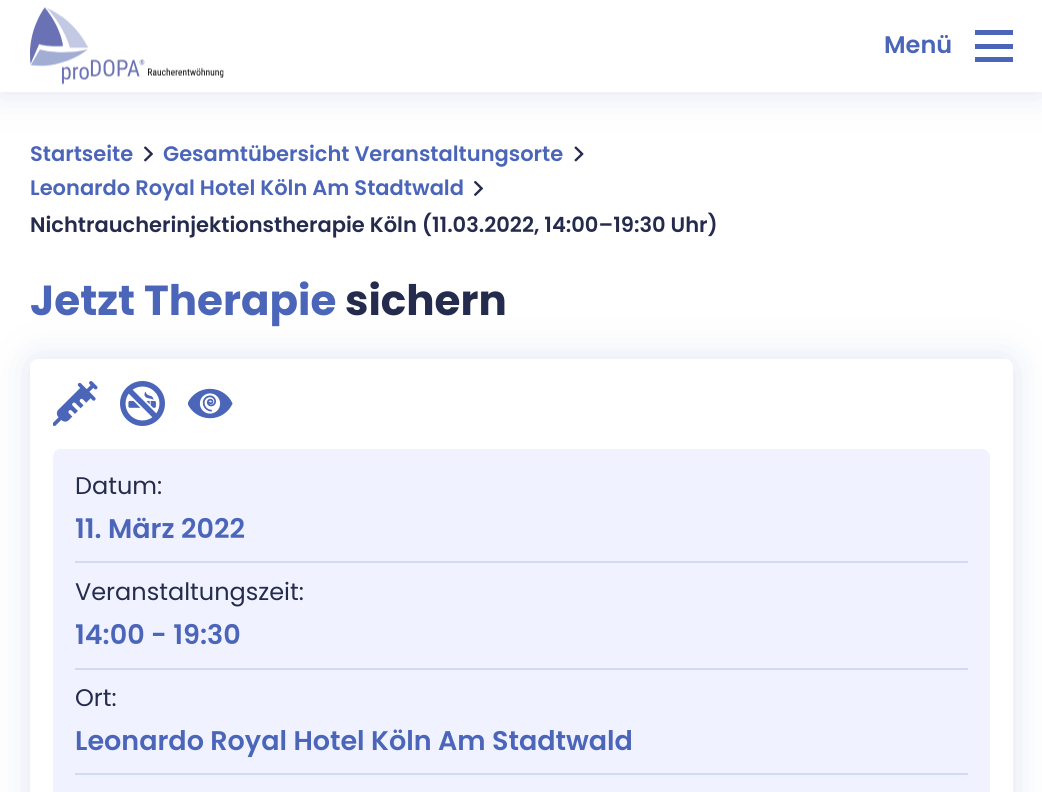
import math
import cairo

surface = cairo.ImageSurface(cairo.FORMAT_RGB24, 1042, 792)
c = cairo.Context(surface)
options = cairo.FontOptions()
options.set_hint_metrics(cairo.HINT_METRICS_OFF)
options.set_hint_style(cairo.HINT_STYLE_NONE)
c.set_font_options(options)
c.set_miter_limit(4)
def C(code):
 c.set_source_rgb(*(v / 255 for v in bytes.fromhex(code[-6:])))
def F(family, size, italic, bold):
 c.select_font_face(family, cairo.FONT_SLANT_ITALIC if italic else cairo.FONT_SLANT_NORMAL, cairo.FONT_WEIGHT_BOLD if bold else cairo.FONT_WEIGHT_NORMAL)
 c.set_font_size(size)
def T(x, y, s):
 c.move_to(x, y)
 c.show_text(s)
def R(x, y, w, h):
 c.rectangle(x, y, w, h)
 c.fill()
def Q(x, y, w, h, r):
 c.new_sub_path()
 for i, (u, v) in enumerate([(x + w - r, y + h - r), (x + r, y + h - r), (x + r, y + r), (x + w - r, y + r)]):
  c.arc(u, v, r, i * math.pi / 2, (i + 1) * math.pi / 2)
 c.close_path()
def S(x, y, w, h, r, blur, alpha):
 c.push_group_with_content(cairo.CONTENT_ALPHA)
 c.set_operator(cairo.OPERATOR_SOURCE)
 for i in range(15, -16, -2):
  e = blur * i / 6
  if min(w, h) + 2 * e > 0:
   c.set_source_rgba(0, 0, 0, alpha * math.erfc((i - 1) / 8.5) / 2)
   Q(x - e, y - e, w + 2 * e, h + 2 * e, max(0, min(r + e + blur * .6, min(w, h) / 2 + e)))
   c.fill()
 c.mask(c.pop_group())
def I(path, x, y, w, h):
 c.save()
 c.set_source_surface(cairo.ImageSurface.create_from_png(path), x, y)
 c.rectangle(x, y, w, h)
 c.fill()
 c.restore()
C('ffffff')
c.paint()
I('2.png',144,146,9,16)
I('3.png',574,146,10,16)
C('6377b6')
S(0,0,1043,92,0,19,.2)
C('ffffff')
R(0,0,1042,92)
I('1.png',30,7,194,78)
F('Poppins SemiBold',24,0,0)
C('4b65b9')
T(884,53,'Menü')
R(975,30,38,5)
R(975,44,38,5)
R(975,57,38,5)
F('Poppins SemiBold',21,0,0)
T(30,161,'Startseite')
T(163,161,'Gesamtübersicht Veranstaltungsorte')
T(30,195,'Leonardo Royal Hotel Köln Am Stadtwald')
I('4.png',474,181,9,15)
C('252b4d')
T(30,232,'Nichtraucherinjektionstherapie Köln (11.03.2022, 14:00–19:30 Uhr)')
F('Poppins',42,0,1)
C('4b65b9')
T(30,315,'Jetzt Therapie')
C('252b4d')
T(345,315,'sichern')
C('6377b6')
S(30,359,983,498,8,19,.2)
C('ffffff')
Q(30,359,983,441,8)
c.fill()
I('5.png',53,381,45,45)
I('6.png',120,381,45,45)
I('7.png',188,388,45,31)
C('f0f3ff')
Q(53,449,937,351,8)
c.fill()
C('d2d9f2')
R(75,561,893,2)
F('Poppins',24,0,0)
C('252b4d')
T(75,494,'Datum:')
F('Poppins SemiBold',27,0,0)
C('4b65b9')
T(75,538,'11. März 2022')
C('d2d9f2')
R(75,668,893,2)
F('Poppins',24,0,0)
C('252b4d')
T(75,600,'Veranstaltungszeit:')
F('Poppins SemiBold',27,0,0)
C('4b65b9')
T(75,644,'14:00 - 19:30')
C('d2d9f2')
R(75,773,893,2)
F('Poppins',24,0,0)
C('252b4d')
T(75,706,'Ort:')
F('Poppins SemiBold',27,0,0)
C('4b65b9')
T(75,750,'Leonardo Royal Hotel Köln Am Stadtwald')
surface.write_to_png('o.png')
